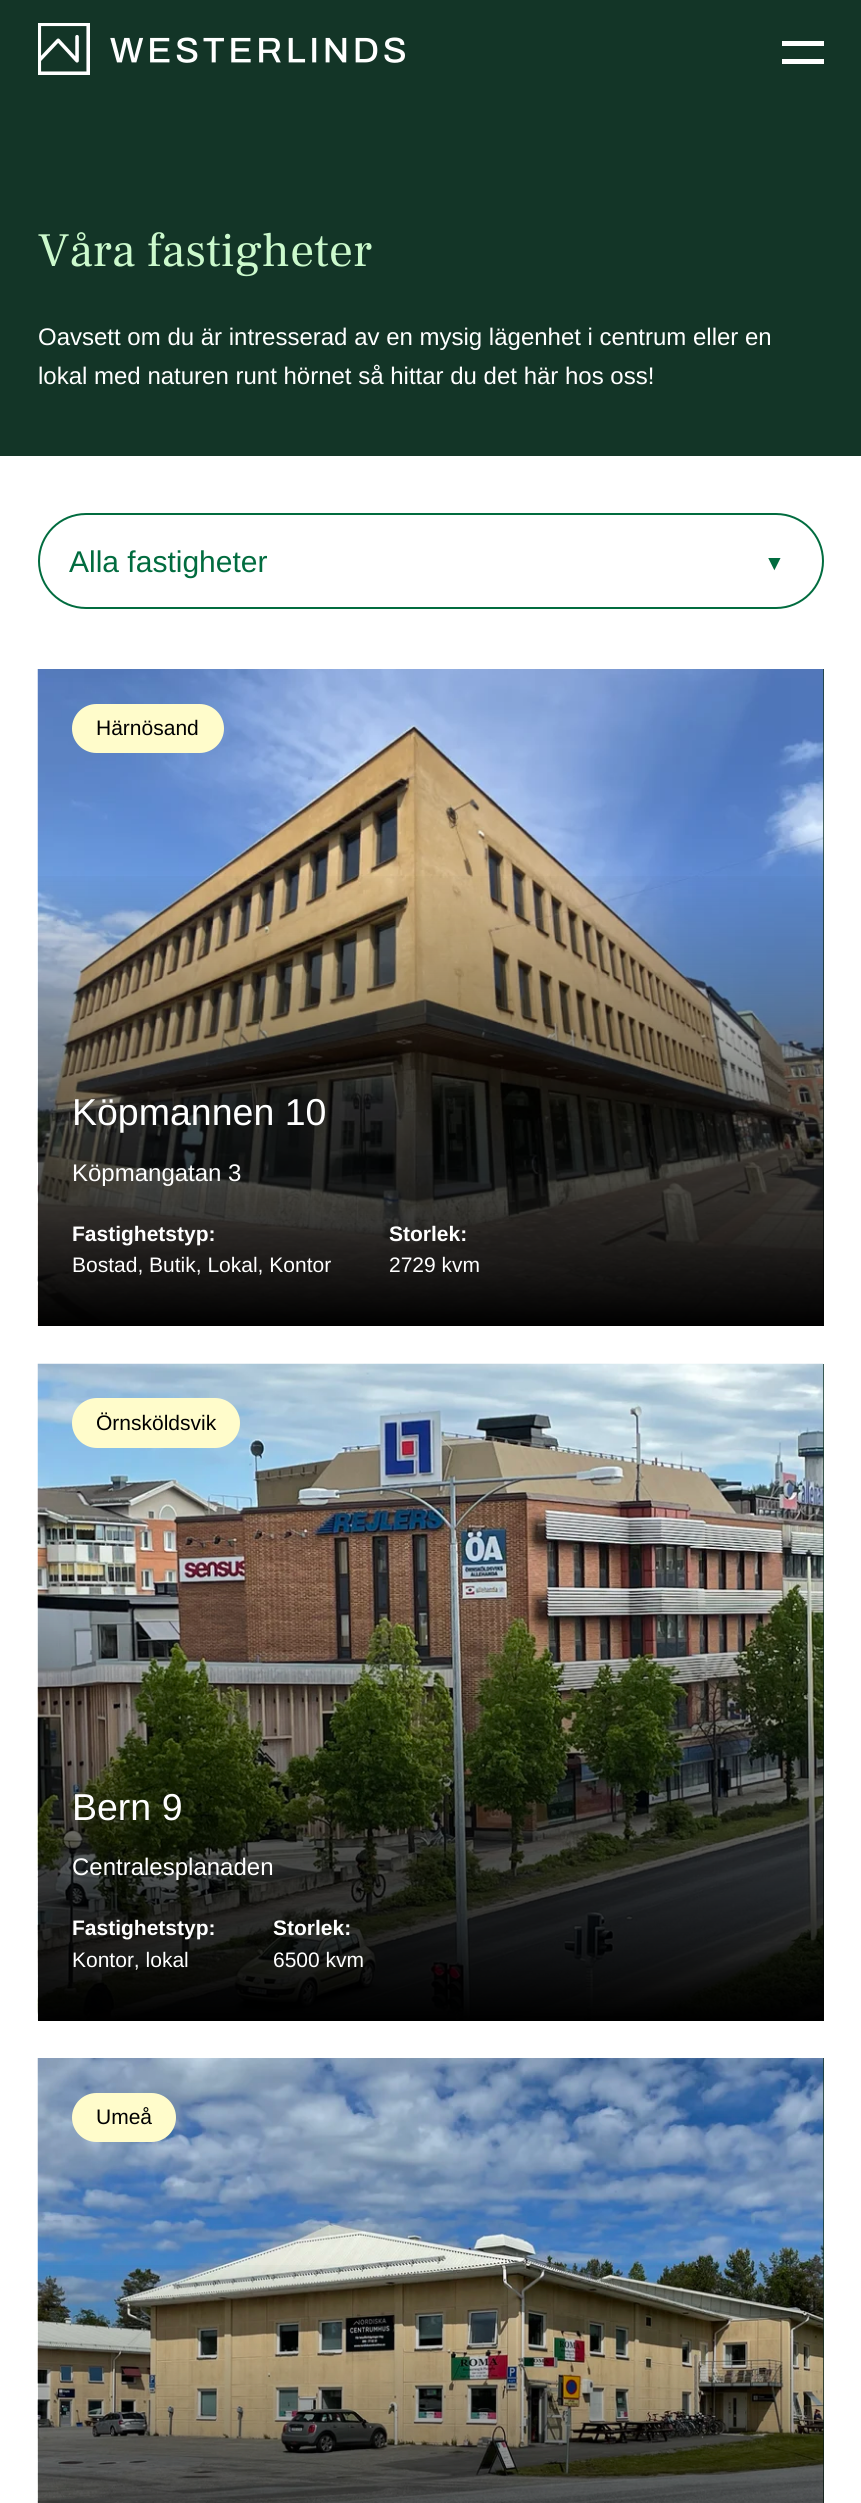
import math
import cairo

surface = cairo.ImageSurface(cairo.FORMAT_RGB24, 861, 2503)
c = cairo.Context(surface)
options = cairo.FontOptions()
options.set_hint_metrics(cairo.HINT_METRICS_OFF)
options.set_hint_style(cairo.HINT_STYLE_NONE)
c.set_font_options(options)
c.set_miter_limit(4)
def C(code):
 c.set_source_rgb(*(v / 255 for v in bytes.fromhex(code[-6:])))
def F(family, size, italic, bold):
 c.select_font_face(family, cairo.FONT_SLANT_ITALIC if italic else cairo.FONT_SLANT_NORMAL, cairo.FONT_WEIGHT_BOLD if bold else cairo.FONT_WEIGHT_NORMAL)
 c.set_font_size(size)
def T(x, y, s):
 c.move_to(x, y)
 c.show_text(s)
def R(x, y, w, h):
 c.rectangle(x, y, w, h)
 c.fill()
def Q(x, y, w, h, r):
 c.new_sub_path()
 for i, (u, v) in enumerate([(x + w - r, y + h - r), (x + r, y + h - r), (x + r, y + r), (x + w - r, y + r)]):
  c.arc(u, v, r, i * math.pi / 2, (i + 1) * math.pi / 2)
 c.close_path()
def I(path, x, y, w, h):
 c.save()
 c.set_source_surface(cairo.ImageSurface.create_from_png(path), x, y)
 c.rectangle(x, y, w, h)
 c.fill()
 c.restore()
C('ffffff')
c.paint()
C('133527')
R(0,0,861,456)
I('1.png',38,23,52,52)
I('2.png',110,37,295,26)
C('ffffff')
R(782,41,42,5)
R(782,59,42,5)
F('Frank Ruhl Libre',48,0,0)
C('cbf9cc')
T(38,266,'Våra fastigheter')
F('Liberation Sans',24,0,0)
C('ffffff')
T(38,345,'Oavsett om du är intresserad av en mysig lägenhet i centrum eller en')
T(38,384,'lokal med naturen runt hörnet så hittar du det här hos oss!')
Q(39,514,784,94,47)
C('016c3f')
c.stroke()
F('Liberation Sans',30,0,0)
T(69,572,'Alla fastigheter')
F('Liberation Sans',21,0,0)
T(764,570,'▼')
C('133527')
R(823,669,1,654)
I('3.png',37,669,787,657)
gradient = cairo.LinearGradient(431,1326,431,669)
gradient.add_color_stop_rgba(0,0,0,0,1)
gradient.add_color_stop_rgba(.7,0,0,0,0)
c.set_source(gradient)
R(38,876,786,450)
C('fffccb')
Q(72,704,152,49,24.5)
c.fill()
C('000000')
T(96,735,'Härnösand')
F('Liberation Sans',37.5,0,0)
C('ffffff')
T(72,1125,'Köpmannen 10')
F('Liberation Sans',24,0,0)
T(72,1181,'Köpmangatan 3')
F('Liberation Sans',21,0,1)
T(72,1241,'Fastighetstyp:')
F('Liberation Sans',21,0,0)
T(72,1272,'Bostad, Butik, Lokal, Kontor')
F('Liberation Sans',21,0,1)
T(389,1241,'Storlek:')
F('Liberation Sans',21,0,0)
T(389,1272,'2729 kvm')
C('133527')
R(823,1364,1,654)
I('4.png',37,1363,787,658)
gradient = cairo.LinearGradient(431,2021,431,1364)
gradient.add_color_stop_rgba(0,0,0,0,1)
gradient.add_color_stop_rgba(.7,0,0,0,0)
c.set_source(gradient)
R(38,1571,786,450)
C('fffccb')
Q(72,1398,168,50,25)
c.fill()
C('000000')
T(96,1430,'Örnsköldsvik')
F('Liberation Sans',37.5,0,0)
C('ffffff')
T(72,1820,'Bern 9')
F('Liberation Sans',24,0,0)
T(72,1875,'Centralesplanaden')
F('Liberation Sans',21,0,1)
T(72,1935,'Fastighetstyp:')
F('Liberation Sans',21,0,0)
T(72,1967,'Kontor, lokal')
F('Liberation Sans',21,0,1)
T(273,1935,'Storlek:')
F('Liberation Sans',21,0,0)
T(273,1967,'6500 kvm')
C('133527')
R(823,2058,1,445)
I('5.png',37,2058,787,445)
gradient = cairo.LinearGradient(431,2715,431,2058)
gradient.add_color_stop_rgba(0,0,0,0,1)
gradient.add_color_stop_rgba(.7,0,0,0,0)
c.set_source(gradient)
R(38,2265,786,238)
C('fffccb')
Q(72,2093,104,49,24.5)
c.fill()
C('000000')
T(96,2124,'Umeå')
surface.write_to_png('o.png')
